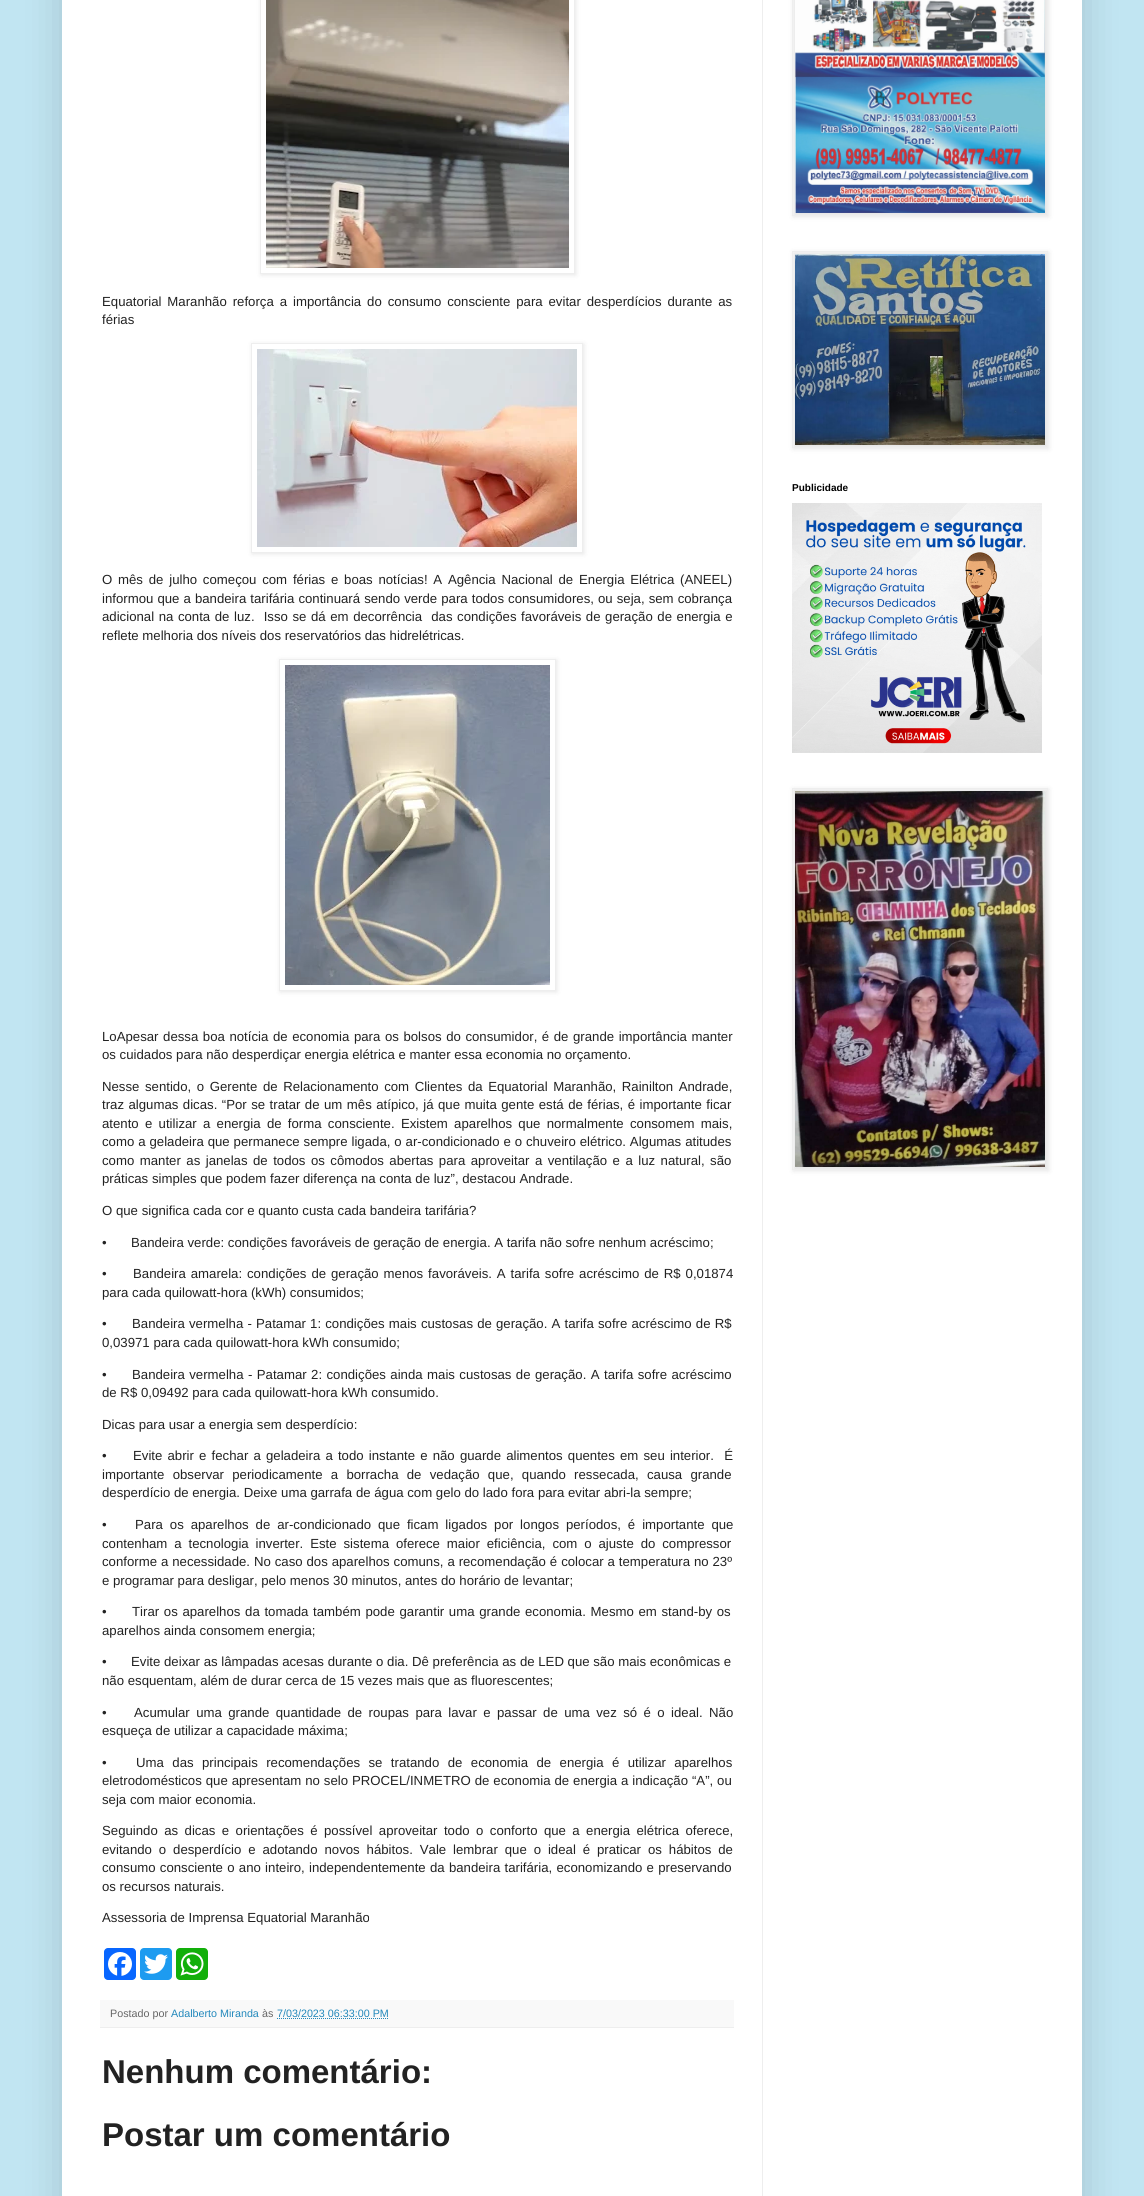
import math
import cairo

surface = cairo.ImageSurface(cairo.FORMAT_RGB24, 1144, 2196)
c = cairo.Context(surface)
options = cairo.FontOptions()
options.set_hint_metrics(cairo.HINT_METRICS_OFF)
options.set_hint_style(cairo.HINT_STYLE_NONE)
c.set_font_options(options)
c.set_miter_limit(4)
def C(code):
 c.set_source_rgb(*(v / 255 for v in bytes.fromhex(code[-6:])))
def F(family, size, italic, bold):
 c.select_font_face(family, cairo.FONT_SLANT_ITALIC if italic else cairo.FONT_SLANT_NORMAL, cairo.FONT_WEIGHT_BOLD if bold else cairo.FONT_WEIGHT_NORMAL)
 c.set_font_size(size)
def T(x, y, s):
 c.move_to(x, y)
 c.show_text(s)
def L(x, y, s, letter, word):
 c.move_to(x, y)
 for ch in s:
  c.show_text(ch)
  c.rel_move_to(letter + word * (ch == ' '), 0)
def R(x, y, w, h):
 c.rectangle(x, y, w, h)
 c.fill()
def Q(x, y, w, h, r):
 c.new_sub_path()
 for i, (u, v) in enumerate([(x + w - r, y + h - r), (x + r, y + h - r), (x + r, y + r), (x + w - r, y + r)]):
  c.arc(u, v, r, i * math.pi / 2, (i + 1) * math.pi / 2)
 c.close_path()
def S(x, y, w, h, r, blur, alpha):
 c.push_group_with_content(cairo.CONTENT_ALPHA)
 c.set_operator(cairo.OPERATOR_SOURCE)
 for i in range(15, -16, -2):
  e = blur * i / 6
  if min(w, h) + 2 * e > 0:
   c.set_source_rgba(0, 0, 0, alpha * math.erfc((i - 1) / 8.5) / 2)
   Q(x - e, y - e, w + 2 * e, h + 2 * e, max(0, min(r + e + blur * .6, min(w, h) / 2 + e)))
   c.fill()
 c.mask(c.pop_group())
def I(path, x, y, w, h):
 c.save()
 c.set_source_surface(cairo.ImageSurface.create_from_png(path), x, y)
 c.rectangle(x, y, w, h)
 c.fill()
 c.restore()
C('c1e5f2')
c.paint()
C('000000')
S(62,-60,1020,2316,0,20,.15)
C('ffffff')
R(62,0,1020,2196)
C('eeeeee')
R(762,0,1,2196)
c.save()
c.set_fill_rule(cairo.FILL_RULE_EVEN_ODD)
c.new_path()
c.move_to(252,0)
c.line_to(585,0)
c.line_to(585,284)
c.line_to(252,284)
c.close_path()
c.move_to(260,-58)
c.line_to(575,-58)
c.line_to(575,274)
c.line_to(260,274)
c.close_path()
c.clip()
C('000000')
S(261,-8,315,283,0,2.5,.1)
c.restore()
c.rectangle(260.5,-.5,314,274)
c.set_line_width(1)
c.stroke()
I('1.png',266,0,303,268)
F('Liberation Sans',13.2,0,0)
C('222222')
L(102,306,'Equatorial Maranhão reforça a importância do consumo consciente para evitar desperdícios durante as',0,2.25)
T(102,324,'férias')
c.save()
c.set_fill_rule(cairo.FILL_RULE_EVEN_ODD)
c.new_path()
c.move_to(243,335)
c.line_to(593,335)
c.line_to(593,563)
c.line_to(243,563)
c.close_path()
c.move_to(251,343)
c.line_to(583,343)
c.line_to(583,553)
c.line_to(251,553)
c.close_path()
c.clip()
C('000000')
S(252,344,332,210,0,2.5,.1)
c.restore()
c.rectangle(251.5,343.5,331,209)
C('eeeeee')
c.stroke()
I('2.png',257,349,320,198)
C('222222')
L(102,584,'O mês de julho começou com férias e boas notícias! A Agência Nacional de Energia Elétrica (ANEEL)',0,2.1)
L(102,603,'informou que a bandeira tarifária continuará sendo verde para todos consumidores, ou seja, sem cobrança',0,.4)
L(102,621,'adicional na conta de luz.  Isso se dá em decorrência  das condições favoráveis de geração de energia e',0,.9)
T(102,640,'reflete melhoria dos níveis dos reservatórios das hidrelétricas.')
c.save()
c.set_fill_rule(cairo.FILL_RULE_EVEN_ODD)
c.new_path()
c.move_to(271,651)
c.line_to(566,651)
c.line_to(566,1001)
c.line_to(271,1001)
c.close_path()
c.move_to(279,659)
c.line_to(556,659)
c.line_to(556,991)
c.line_to(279,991)
c.close_path()
c.clip()
C('000000')
S(280,660,277,332,0,2.5,.1)
c.restore()
c.rectangle(279.5,659.5,276,331)
C('eeeeee')
c.stroke()
I('3.png',285,665,265,320)
C('222222')
L(102,1041,'LoApesar dessa boa notícia de economia para os bolsos do consumidor, é de grande importância manter',0,.9)
T(102,1059,'os cuidados para não desperdiçar energia elétrica e manter essa economia no orçamento.')
L(102,1091,'Nesse sentido, o Gerente de Relacionamento com Clientes da Equatorial Maranhão, Rainilton Andrade,',0,1.9)
L(102,1109,'traz algumas dicas. “Por se tratar de um mês atípico, já que muita gente está de férias, é importante ficar',0,.8)
L(102,1128,'atento e utilizar a energia de forma consciente. Existem aparelhos que normalmente consomem mais,',0,2.6)
L(102,1146,'como a geladeira que permanece sempre ligada, o ar-condicionado e o chuveiro elétrico. Algumas atitudes',0,.25)
L(102,1165,'como manter as janelas de todos os cômodos abertas para aproveitar a ventilação e a luz natural, são',0,1.8)
T(102,1183,'práticas simples que podem fazer diferença na conta de luz”, destacou Andrade.')
T(102,1215,'O que significa cada cor e quanto custa cada bandeira tarifária?')
T(102,1247,'•')
T(131,1247,'Bandeira verde: condições favoráveis de geração de energia. A tarifa não sofre nenhum acréscimo;')
T(102,1278,'•')
L(133,1278,'Bandeira amarela: condições de geração menos favoráveis. A tarifa sofre acréscimo de R$ 0,01874',0,1.25)
T(102,1297,'para cada quilowatt-hora (kWh) consumidos;')
T(102,1328,'•')
L(132,1328,'Bandeira vermelha - Patamar 1: condições mais custosas de geração. A tarifa sofre acréscimo de R$',0,.5)
T(102,1347,'0,03971 para cada quilowatt-hora kWh consumido;')
T(102,1379,'•')
L(132,1379,'Bandeira vermelha - Patamar 2: condições ainda mais custosas de geração. A tarifa sofre acréscimo',0,.75)
T(102,1397,'de R$ 0,09492 para cada quilowatt-hora kWh consumido.')
T(102,1429,'Dicas para usar a energia sem desperdício:')
T(102,1460,'•')
L(133,1460,'Evite abrir e fechar a geladeira a todo instante e não guarde alimentos quentes em seu interior.  É',0,1.5)
L(102,1479,'importante observar periodicamente a borracha de vedação que, quando ressecada, causa grande',0,4.6)
T(102,1497,'desperdício de energia. Deixe uma garrafa de água com gelo do lado fora para evitar abri-la sempre;')
T(102,1529,'•')
L(135,1529,'Para os aparelhos de ar-condicionado que ficam ligados por longos períodos, é importante que',0,3.25)
L(102,1548,'contenham a tecnologia inverter. Este sistema oferece maior eficiência, com o ajuste do compressor',0,3.25)
L(102,1566,'conforme a necessidade. No caso dos aparelhos comuns, a recomendação é colocar a temperatura no 23º',0,.25)
T(102,1585,'e programar para desligar, pelo menos 30 minutos, antes do horário de levantar;')
T(102,1616,'•')
L(132,1616,'Tirar os aparelhos da tomada também pode garantir uma grande economia. Mesmo em stand-by os',0,1)
T(102,1635,'aparelhos ainda consomem energia;')
T(102,1666,'•')
T(131,1666,'Evite deixar as lâmpadas acesas durante o dia. Dê preferência as de LED que são mais econômicas e')
T(102,1685,'não esquentam, além de durar cerca de 15 vezes mais que as fluorescentes;')
T(102,1717,'•')
L(134,1717,'Acumular uma grande quantidade de roupas para lavar e passar de uma vez só é o ideal. Não',0,2.75)
T(102,1735,'esqueça de utilizar a capacidade máxima;')
T(102,1767,'•')
L(136,1767,'Uma das principais recomendações se tratando de economia de energia é utilizar aparelhos',0,4.75)
L(102,1785,'eletrodomésticos que apresentam no selo PROCEL/INMETRO de economia de energia a indicação “A”, ou',0,.25)
T(102,1804,'seja com maior economia.')
L(102,1835,'Seguindo as dicas e orientações é possível aproveitar todo o conforto que a energia elétrica oferece,',0,2.75)
L(102,1854,'evitando o desperdício e adotando novos hábitos. Vale lembrar que o ideal é praticar os hábitos de',0,3.25)
L(102,1872,'consumo consciente o ano inteiro, independentemente da bandeira tarifária, economizando e preservando',0,.6)
T(102,1891,'os recursos naturais.')
T(102,1922,'Assessoria de Imprensa Equatorial Maranhão')
C('0866ff')
Q(104,1948,32,32,4)
c.fill()
I('4.png',108,1952,24,24)
C('1d9bf0')
Q(140,1948,32,32,4)
c.fill()
I('5.png',144,1954,24,20)
C('12af0a')
Q(176,1948,32,32,4)
c.fill()
I('6.png',180,1952,24,24)
C('f9f9f9')
R(100,2000,634,27)
C('eeeeee')
R(100,2027,634,1)
F('Liberation Sans',10.75,0,0)
C('666666')
T(110,2017,'Postado por')
C('2288bb')
T(171,2017,'Adalberto Miranda')
C('666666')
T(262,2017,'às')
C('2288bb')
T(277,2017,'7/03/2023 06:33:00 PM')
c.new_path()
c.move_to(277,2018.5)
c.line_to(389,2018.5)
c.set_dash([1,1])
c.stroke()
F('Liberation Sans',33,0,1)
C('222222')
T(102,2083,'Nenhum comentário:')
T(102,2146,'Postar um comentário')
C('000000')
S(793,-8,256,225,0,2.5,.1)
c.rectangle(792.5,-.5,255,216)
C('eeeeee')
c.set_dash([])
c.stroke()
I('7.png',795,0,250,213)
C('000000')
S(793,252,256,197,0,2.5,.1)
c.rectangle(792.5,251.5,255,196)
C('eeeeee')
c.stroke()
I('8.png',795,254,250,191)
F('Liberation Sans',10,0,1)
C('000000')
T(792,491,'Publicidade')
I('9.png',792,503,250,250)
C('000000')
S(793,789,256,382,0,2.5,.1)
c.rectangle(792.5,788.5,255,381)
C('eeeeee')
c.stroke()
I('10.png',795,791,250,376)
surface.write_to_png('o.png')
